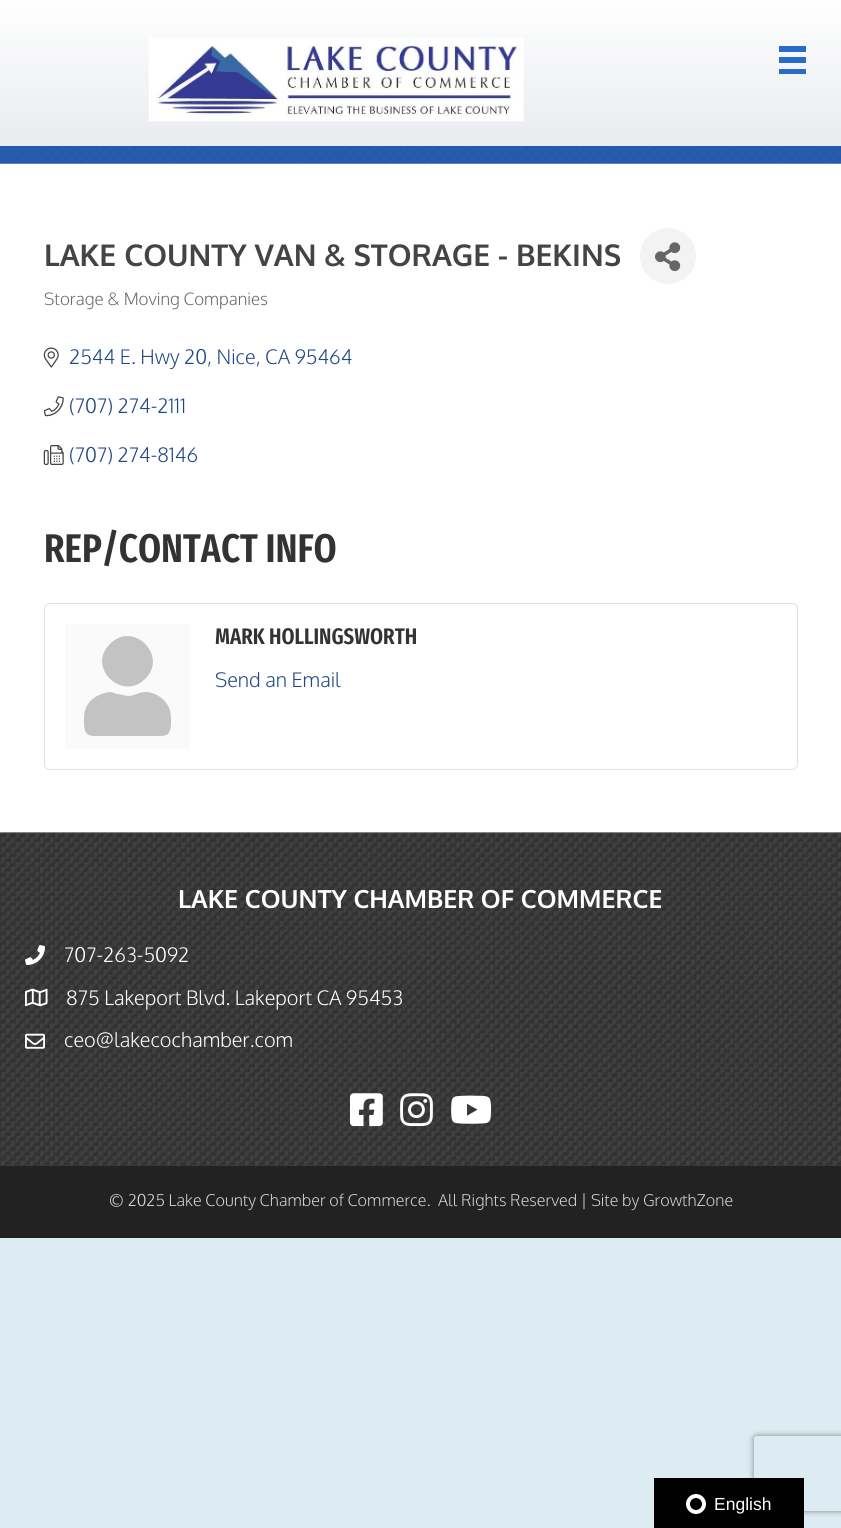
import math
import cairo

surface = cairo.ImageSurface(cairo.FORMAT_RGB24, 841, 1528)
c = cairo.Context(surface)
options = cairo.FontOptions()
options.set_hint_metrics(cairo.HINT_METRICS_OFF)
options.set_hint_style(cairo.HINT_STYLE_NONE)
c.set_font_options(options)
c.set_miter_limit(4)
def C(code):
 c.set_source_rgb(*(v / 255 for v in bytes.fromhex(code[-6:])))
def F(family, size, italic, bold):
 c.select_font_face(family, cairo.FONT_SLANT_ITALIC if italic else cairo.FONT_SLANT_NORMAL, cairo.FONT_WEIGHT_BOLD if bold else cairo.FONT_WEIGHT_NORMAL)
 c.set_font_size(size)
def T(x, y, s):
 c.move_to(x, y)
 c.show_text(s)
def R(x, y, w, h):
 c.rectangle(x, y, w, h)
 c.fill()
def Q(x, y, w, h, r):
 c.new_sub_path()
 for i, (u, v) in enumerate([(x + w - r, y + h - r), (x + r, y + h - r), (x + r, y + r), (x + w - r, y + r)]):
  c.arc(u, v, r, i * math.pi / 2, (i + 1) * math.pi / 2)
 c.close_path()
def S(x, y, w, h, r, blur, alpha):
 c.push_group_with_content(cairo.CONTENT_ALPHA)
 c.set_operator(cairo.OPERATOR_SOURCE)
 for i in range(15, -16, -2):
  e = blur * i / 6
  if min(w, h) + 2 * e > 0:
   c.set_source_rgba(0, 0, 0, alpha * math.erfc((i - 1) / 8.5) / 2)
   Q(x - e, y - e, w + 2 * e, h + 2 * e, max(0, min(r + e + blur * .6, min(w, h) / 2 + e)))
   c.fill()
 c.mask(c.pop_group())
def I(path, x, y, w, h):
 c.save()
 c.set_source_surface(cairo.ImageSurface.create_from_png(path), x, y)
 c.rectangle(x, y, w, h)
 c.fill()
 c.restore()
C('dcecf2')
c.paint()
C('ffffff')
R(0,163,841,670)
I('2.png',0,0,841,164)
I('1.png',148,38,376,84)
C('296bc9')
R(779,46,27,6)
R(779,57,27,6)
R(779,69,27,5)
F('Oxygen',30,0,1)
C('444444')
T(44,266,'LAKE COUNTY VAN & STORAGE - BEKINS')
C('f3f3f3')
c.new_path()
c.arc(668,256,28,0,2 * math.pi)
c.fill()
I('3.png',655,242,26,30)
F('Oxygen Light',17,0,0)
C('696969')
T(44,305,'Storage & Moving Companies')
I('4.png',43,347,16,21)
F('Oxygen Light',20,0,0)
C('224884')
T(69,364,'2544 E. Hwy 20, Nice, CA 95464')
I('5.png',43,396,21,21)
T(69,413,'(707) 274-2111')
I('6.png',43,445,21,20)
T(69,462,'(707) 274-8146')
F('Fira Sans Extra Condensed SemiBold',40,0,0)
C('333333')
T(44,562,'REP/CONTACT INFO')
Q(44.5,603.5,753,166,5.5)
C('dfdfdf')
c.set_line_width(1)
c.stroke()
C('fafafa')
R(65,624,125,125)
C('c3c3c3')
c.new_path()
c.move_to(145,679)
c.curve_to(122,702,86,667,110,644)
c.curve_to(133,620,169,656,145,679)
c.close_path()
c.move_to(145,692)
c.curve_to(154,692,162,697,167,704)
c.curve_to(171,710,171,716,171,722)
c.curve_to(171,738,165,736,150,736)
c.line_to(105,736)
c.curve_to(90,736,84,738,84,722)
c.curve_to(84,716,84,710,88,704)
c.curve_to(93,697,101,693,110,692)
c.curve_to(113,692,115,694,118,694)
c.line_to(128,696)
c.curve_to(134,696,139,692,145,692)
c.close_path()
c.fill()
F('Fira Sans Extra Condensed SemiBold',22.5,0,0)
C('333333')
T(215,644,'MARK HOLLINGSWORTH')
F('Oxygen Light',20,0,0)
C('224884')
T(215,687,'Send an Email')
I('7.png',0,832,841,334)
F('Oxygen',25,0,1)
C('ffffff')
T(178,908,'LAKE COUNTY CHAMBER OF COMMERCE')
I('8.png',25,945,20,20)
F('Oxygen Light',20,0,0)
T(64,962,'707-263-5092')
I('9.png',25,988,23,19)
T(66,1005,'875 Lakeport Blvd. Lakeport CA 95453')
I('10.png',25,1033,20,16)
T(64,1047,'ceo@lakecochamber.com')
I('11.png',350,1093,33,34)
I('12.png',400,1093,33,34)
I('13.png',451,1095,41,29)
C('222222')
R(0,1166,841,72)
F('Oxygen Light',16.25,0,0)
C('d3d3d3')
T(109,1206,'© 2025 Lake County Chamber of Commerce.')
T(438,1206,'All Rights Reserved | Site by GrowthZone')
c.save()
c.set_fill_rule(cairo.FILL_RULE_EVEN_ODD)
c.new_path()
c.move_to(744,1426)
c.line_to(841,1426)
c.line_to(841,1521)
c.line_to(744,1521)
c.close_path()
c.move_to(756.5,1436)
c.line_to(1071.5,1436)
c.curve_to(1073,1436,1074,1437,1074,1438.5)
c.line_to(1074,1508.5)
c.curve_to(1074,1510,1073,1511,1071.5,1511)
c.line_to(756.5,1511)
c.curve_to(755,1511,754,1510,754,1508.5)
c.line_to(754,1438.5)
c.curve_to(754,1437,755,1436,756.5,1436)
c.close_path()
c.clip()
C('808080')
S(754,1436,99,75,2.5,3,1)
c.restore()
C('000000')
R(654,1478,150,50)
c.arc(696,1504,8,0,2 * math.pi)
C('ffffff')
c.set_line_width(4)
c.stroke()
F('Liberation Sans',17.5,0,0)
T(714,1510,'English')
surface.write_to_png('o.png')
